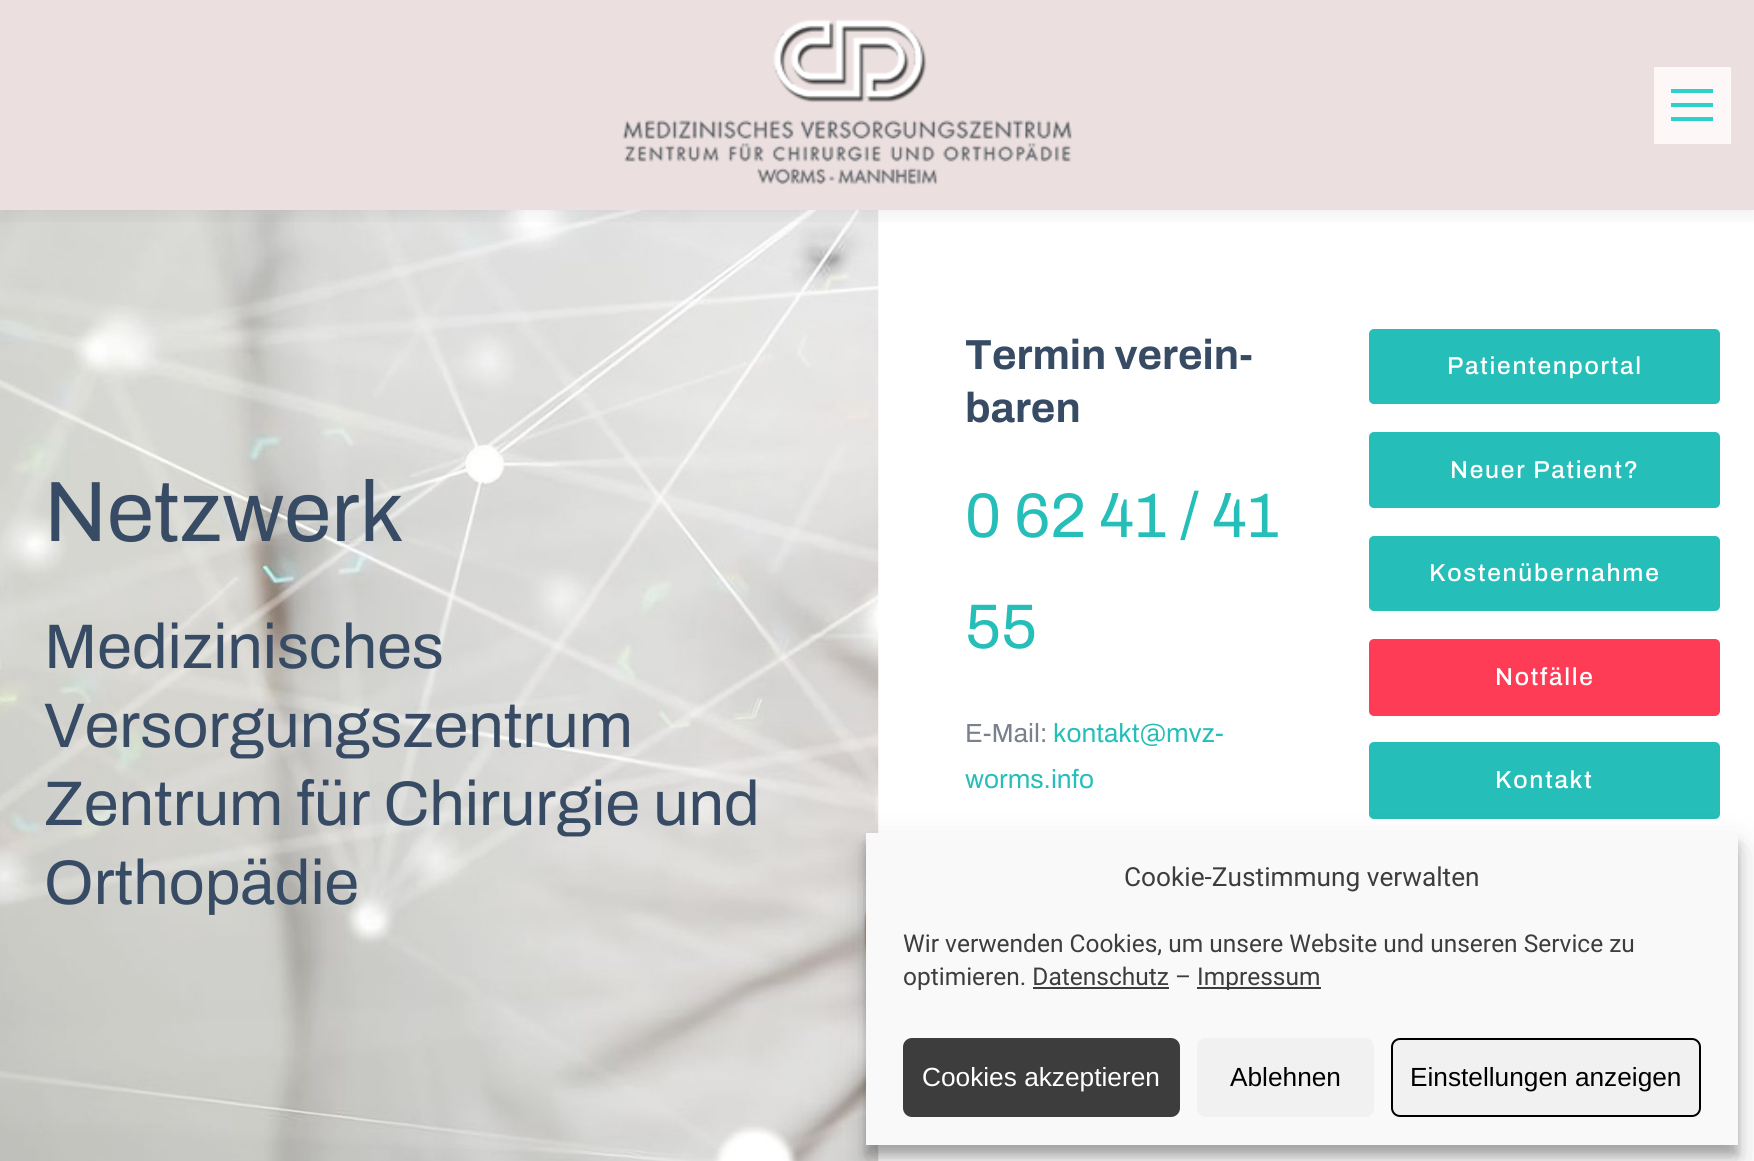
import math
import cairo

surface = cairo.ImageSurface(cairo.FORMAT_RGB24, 1754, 1161)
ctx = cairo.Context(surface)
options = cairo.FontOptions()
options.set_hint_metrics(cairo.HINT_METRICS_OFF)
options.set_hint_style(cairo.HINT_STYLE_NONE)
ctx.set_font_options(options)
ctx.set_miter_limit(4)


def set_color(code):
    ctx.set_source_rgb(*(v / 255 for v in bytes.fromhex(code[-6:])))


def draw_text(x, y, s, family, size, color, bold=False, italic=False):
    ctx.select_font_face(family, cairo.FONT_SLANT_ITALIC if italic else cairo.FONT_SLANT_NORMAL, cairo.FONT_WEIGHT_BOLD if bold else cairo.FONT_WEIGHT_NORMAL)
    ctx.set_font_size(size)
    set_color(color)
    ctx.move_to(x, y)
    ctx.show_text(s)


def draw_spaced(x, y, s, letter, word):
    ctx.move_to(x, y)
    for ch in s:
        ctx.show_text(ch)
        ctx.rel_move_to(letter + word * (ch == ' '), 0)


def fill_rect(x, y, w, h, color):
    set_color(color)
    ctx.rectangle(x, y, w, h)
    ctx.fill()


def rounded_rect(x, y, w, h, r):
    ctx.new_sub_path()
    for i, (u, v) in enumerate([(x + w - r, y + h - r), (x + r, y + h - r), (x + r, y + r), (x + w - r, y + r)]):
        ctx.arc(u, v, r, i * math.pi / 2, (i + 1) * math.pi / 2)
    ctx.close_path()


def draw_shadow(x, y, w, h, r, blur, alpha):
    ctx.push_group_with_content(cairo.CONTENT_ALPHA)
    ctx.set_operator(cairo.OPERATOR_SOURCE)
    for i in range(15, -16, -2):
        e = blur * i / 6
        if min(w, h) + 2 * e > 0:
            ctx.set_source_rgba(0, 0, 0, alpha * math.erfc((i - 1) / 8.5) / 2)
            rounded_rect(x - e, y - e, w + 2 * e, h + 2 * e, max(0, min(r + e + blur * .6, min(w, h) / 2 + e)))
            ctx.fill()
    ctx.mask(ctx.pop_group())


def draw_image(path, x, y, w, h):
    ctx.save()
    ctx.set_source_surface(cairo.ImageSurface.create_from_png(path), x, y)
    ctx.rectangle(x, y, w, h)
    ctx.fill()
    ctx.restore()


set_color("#ebdfdf")
ctx.paint()
fill_rect(878, 210, 876, 951, "#ffffff")
draw_image("assets/img2.png", 0, 210, 879, 951)
ctx.save()
ctx.rectangle(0, 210, 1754, 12)
ctx.clip()
set_color("#11111a")
draw_shadow(0, 0, 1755, 210, 0, 14, 0.1)
ctx.restore()
draw_image("assets/img1.png", 622, 19, 450, 166)
fill_rect(1654, 67, 77, 77, "#fdf7f7")
fill_rect(1671, 103, 42, 4, "#2dd0ca")
fill_rect(1671, 89, 42, 4, "#2dd0ca")
fill_rect(1671, 117, 42, 4, "#2dd0ca")
draw_text(44, 541, "Netzwerk", "Archivo", 85.75, "#384b64")
draw_text(44, 668, "Medizinisches", "Archivo", 63, "#384b64")
draw_text(44, 747, "Versorgungszentrum", "Archivo", 63, "#384b64")
draw_text(44, 825, "Zentrum für Chirurgie und", "Archivo", 63, "#384b64")
draw_text(44, 904, "Orthopädie", "Archivo", 63, "#384b64")
draw_text(965, 369, "Termin verein-", "Archivo", 42, "#384b64", bold=True)
draw_text(965, 422, "baren", "Archivo", 42, "#384b64", bold=True)
draw_text(965, 537, "0 62 41 / 41", "Archivo", 63, "#26beb8")
draw_text(965, 648, "55", "Archivo", 63, "#26beb8")
draw_text(965, 742, "E-Mail:", "Archivo", 26.25, "#79818e")
draw_text(1053, 742, "kontakt@mvz-", "Archivo", 26.25, "#26beb8")
draw_text(965, 788, "worms.info", "Archivo", 26.25, "#26beb8")
rounded_rect(1369, 329, 351, 75, 5)
ctx.fill()
ctx.select_font_face("Archivo Medium")
ctx.set_font_size(24.5)
set_color("#ffffff")
draw_spaced(1447, 374, "Patientenportal", 1.75, 0)
set_color("#26beb8")
rounded_rect(1369, 432, 351, 76, 5)
ctx.fill()
set_color("#ffffff")
draw_spaced(1450, 478, "Neuer Patient?", 1.75, 0)
set_color("#26beb8")
rounded_rect(1369, 536, 351, 75, 5)
ctx.fill()
set_color("#ffffff")
draw_spaced(1429, 581, "Kostenübernahme", 1.75, 0)
set_color("#ff3c56")
rounded_rect(1369, 639, 351, 77, 5)
ctx.fill()
set_color("#ffffff")
draw_spaced(1495, 685, "Notfälle", 1.75, 0)
set_color("#26beb8")
rounded_rect(1369, 742, 351, 77, 5)
ctx.fill()
set_color("#ffffff")
draw_spaced(1495, 788, "Kontakt", 1.75, 0)
set_color("#000000")
draw_shadow(866, 844, 872, 311, 0, 5, 0.23)
draw_shadow(866, 851, 872, 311, 0, 17.5, 0.19)
fill_rect(866, 833, 872, 312, "#f9f9f9")
draw_text(1124, 886, "Cookie-Zustimmung verwalten", "Roboto", 26.25, "#3d3d3d")
draw_text(903, 952, "Wir verwenden Cookies, um unsere Website und unseren Service zu", "Roboto", 24.5, "#3d3d3d")
draw_text(903, 985, "optimieren. Datenschutz –", "Roboto", 24.5, "#3d3d3d")
fill_rect(1033, 987, 136, 2, "#3d3d3d")
fill_rect(1197, 987, 124, 2, "#3d3d3d")
draw_text(1197, 985, "Impressum", "Roboto", 24.5, "#3d3d3d")
rounded_rect(904, 1039, 275, 77, 8)
ctx.fill_preserve()
ctx.stroke()
draw_text(922, 1086, "Cookies akzeptieren", "Liberation Sans", 26.25, "#ffffff")
set_color("#f1f1f1")
rounded_rect(1197, 1038, 177, 79, 9)
ctx.fill()
draw_text(1230, 1086, "Ablehnen", "Liberation Sans", 26.25, "#000000")
set_color("#f1f1f1")
rounded_rect(1392, 1039, 308, 77, 8)
ctx.fill_preserve()
set_color("#000000")
ctx.stroke()
draw_text(1410, 1086, "Einstellungen anzeigen", "Liberation Sans", 26.25, "#000000")
surface.write_to_png("output.png")
